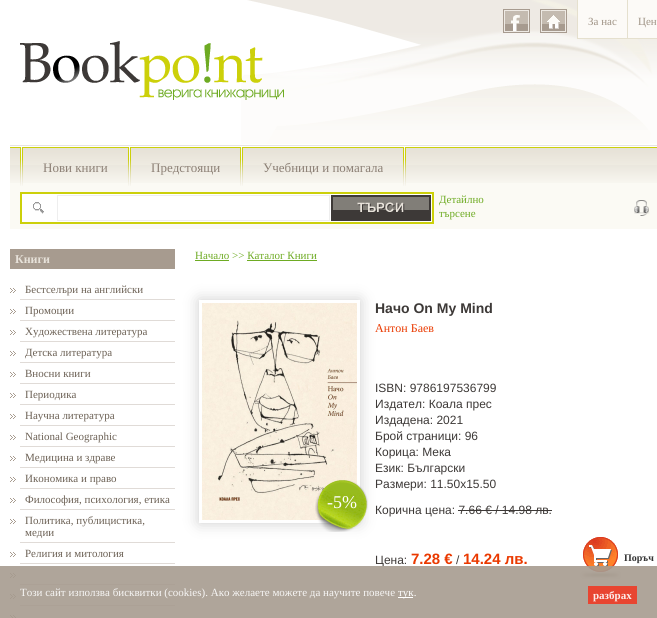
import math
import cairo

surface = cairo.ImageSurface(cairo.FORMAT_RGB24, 657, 618)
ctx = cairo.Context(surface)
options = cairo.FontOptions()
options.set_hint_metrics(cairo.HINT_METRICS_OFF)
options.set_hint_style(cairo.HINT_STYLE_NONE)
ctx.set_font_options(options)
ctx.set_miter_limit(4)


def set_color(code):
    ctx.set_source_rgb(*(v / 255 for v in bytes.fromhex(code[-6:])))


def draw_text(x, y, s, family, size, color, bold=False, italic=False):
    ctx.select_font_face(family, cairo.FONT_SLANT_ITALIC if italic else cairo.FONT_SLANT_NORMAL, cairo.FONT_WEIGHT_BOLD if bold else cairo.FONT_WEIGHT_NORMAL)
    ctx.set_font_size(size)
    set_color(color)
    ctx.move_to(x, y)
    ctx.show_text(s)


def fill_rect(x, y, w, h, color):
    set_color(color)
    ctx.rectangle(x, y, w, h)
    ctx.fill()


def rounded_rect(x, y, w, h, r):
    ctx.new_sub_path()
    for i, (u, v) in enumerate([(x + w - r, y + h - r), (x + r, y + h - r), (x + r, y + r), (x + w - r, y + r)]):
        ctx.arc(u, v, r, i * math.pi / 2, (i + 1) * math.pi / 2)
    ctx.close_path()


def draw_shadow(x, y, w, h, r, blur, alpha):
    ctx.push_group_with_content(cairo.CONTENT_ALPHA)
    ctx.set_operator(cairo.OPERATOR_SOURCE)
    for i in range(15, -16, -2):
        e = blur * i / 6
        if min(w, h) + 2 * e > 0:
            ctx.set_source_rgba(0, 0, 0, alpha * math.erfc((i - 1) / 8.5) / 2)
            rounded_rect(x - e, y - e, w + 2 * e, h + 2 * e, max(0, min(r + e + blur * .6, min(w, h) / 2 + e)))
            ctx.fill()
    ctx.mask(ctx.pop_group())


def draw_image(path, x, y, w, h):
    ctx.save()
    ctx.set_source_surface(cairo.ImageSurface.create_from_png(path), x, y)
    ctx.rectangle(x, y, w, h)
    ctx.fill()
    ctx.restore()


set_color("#ffffff")
ctx.paint()
draw_image("assets/img1.png", 241, 0, 416, 144)
draw_image("assets/img2.png", 503, 9, 27, 24)
draw_image("assets/img3.png", 540, 9, 27, 24)
fill_rect(578, 0, 49, 38, "#fcfaf7")
fill_rect(577, 38, 80, 1, "#e5e0ce")
fill_rect(577, 0, 1, 39, "#e5e0ce")
draw_text(588, 25, "За нас", "Liberation Serif", 11, "#9f9385")
fill_rect(628, 0, 29, 38, "#fcfaf7")
fill_rect(627, 0, 1, 39, "#e5e0ce")
draw_text(638, 25, "Цен", "Liberation Serif", 11, "#9f9385")
draw_image("assets/img4.png", 20, 41, 264, 59)
fill_rect(10, 183, 647, 46, "#fbfaf4")
draw_image("assets/img5.png", 10, 145, 647, 38)
draw_image("assets/img6.png", 20, 147, 3, 39)
draw_text(43, 172, "Нови книги", "Liberation Serif", 13, "#8c8075")
draw_image("assets/img6.png", 128, 147, 3, 39)
draw_text(151, 172, "Предстоящи", "Liberation Serif", 13, "#8c8075")
draw_image("assets/img6.png", 240, 147, 3, 39)
draw_text(263, 172, "Учебници и помагала", "Liberation Serif", 13, "#8c8075")
draw_image("assets/img6.png", 403, 147, 3, 39)
set_color("#ffffff")
ctx.rectangle(21, 193, 412, 30)
ctx.fill_preserve()
set_color("#ccd00a")
ctx.stroke()
draw_image("assets/img7.png", 33, 202, 11, 12)
ctx.rectangle(57.5, 195.5, 272, 25)
set_color("#eeeeee")
ctx.set_line_width(1)
ctx.stroke()
draw_image("assets/img8.png", 331, 195, 100, 26)
draw_text(439, 203, "Детайлно", "Liberation Serif", 11, "#6eab23")
draw_text(439, 217, "търсене", "Liberation Serif", 11, "#6eab23")
draw_image("assets/img9.png", 634, 200, 16, 16)
fill_rect(10, 249, 165, 20, "#a79b8f")
draw_text(15, 263, "Книги", "Liberation Serif", 12, "#e7e2da", bold=True)
draw_image("assets/img10.png", 10, 288, 6, 5)
fill_rect(20, 299, 155, 1, "#e0dbd7")
draw_text(25, 293, "Бестселъри на английски", "Liberation Serif", 11, "#6c6155")
draw_image("assets/img10.png", 10, 309, 6, 5)
fill_rect(20, 320, 155, 1, "#e0dbd7")
draw_text(25, 314, "Промоции", "Liberation Serif", 11, "#6c6155")
draw_image("assets/img10.png", 10, 330, 6, 5)
fill_rect(20, 341, 155, 1, "#e0dbd7")
draw_text(25, 335, "Художествена литература", "Liberation Serif", 11, "#6c6155")
draw_image("assets/img10.png", 10, 351, 6, 5)
fill_rect(20, 362, 155, 1, "#e0dbd7")
draw_text(25, 356, "Детска литература", "Liberation Serif", 11, "#6c6155")
draw_image("assets/img10.png", 10, 372, 6, 5)
fill_rect(20, 383, 155, 1, "#e0dbd7")
draw_text(25, 377, "Вносни книги", "Liberation Serif", 11, "#6c6155")
draw_image("assets/img10.png", 10, 393, 6, 5)
fill_rect(20, 404, 155, 1, "#e0dbd7")
draw_text(25, 398, "Периодика", "Liberation Serif", 11, "#6c6155")
draw_image("assets/img10.png", 10, 414, 6, 5)
fill_rect(20, 425, 155, 1, "#e0dbd7")
draw_text(25, 419, "Научна литература", "Liberation Serif", 11, "#6c6155")
draw_image("assets/img10.png", 10, 435, 6, 5)
fill_rect(20, 446, 155, 1, "#e0dbd7")
draw_text(25, 440, "National Geographic", "Liberation Serif", 11, "#6c6155")
draw_image("assets/img10.png", 10, 456, 6, 5)
fill_rect(20, 467, 155, 1, "#e0dbd7")
draw_text(25, 461, "Медицина и здраве", "Liberation Serif", 11, "#6c6155")
draw_image("assets/img10.png", 10, 477, 6, 5)
fill_rect(20, 488, 155, 1, "#e0dbd7")
draw_text(25, 482, "Икономика и право", "Liberation Serif", 11, "#6c6155")
draw_image("assets/img10.png", 10, 498, 6, 5)
fill_rect(20, 509, 155, 1, "#e0dbd7")
draw_text(25, 503, "Философия, психология, етика", "Liberation Serif", 11, "#6c6155")
draw_image("assets/img10.png", 10, 519, 6, 5)
fill_rect(20, 542, 155, 1, "#e0dbd7")
draw_text(25, 524, "Политика, публицистика,", "Liberation Serif", 11, "#6c6155")
draw_text(25, 536, "медии", "Liberation Serif", 11, "#6c6155")
draw_image("assets/img10.png", 10, 552, 6, 5)
fill_rect(20, 563, 155, 1, "#e0dbd7")
draw_text(25, 557, "Религия и митология", "Liberation Serif", 11, "#6c6155")
draw_image("assets/img10.png", 10, 573, 6, 5)
fill_rect(20, 584, 155, 1, "#e0dbd7")
draw_image("assets/img10.png", 10, 594, 6, 5)
fill_rect(20, 605, 155, 1, "#e0dbd7")
draw_image("assets/img11.png", 10, 615, 6, 3)
draw_text(195, 259, "Начало >> Каталог Книги", "Liberation Serif", 11, "#6eab23")
fill_rect(195, 260, 34, 1, "#6eab23")
fill_rect(247, 260, 70, 1, "#6eab23")
ctx.save()
ctx.set_fill_rule(cairo.FILL_RULE_EVEN_ODD)
ctx.new_path()
ctx.move_to(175, 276)
ctx.line_to(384, 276)
ctx.line_to(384, 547)
ctx.line_to(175, 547)
ctx.close_path()
ctx.move_to(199, 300)
ctx.line_to(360, 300)
ctx.line_to(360, 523)
ctx.line_to(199, 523)
ctx.close_path()
ctx.clip()
set_color("#cecece")
draw_shadow(199, 300, 161, 223, 0, 7.5, 1)
ctx.restore()
draw_image("assets/img12.png", 202, 303, 155, 217)
draw_image("assets/img13.png", 315, 480, 53, 52)
draw_text(327, 508, "-5%", "Liberation Serif", 18, "#ffffff")
draw_text(375, 313, "Начо On My Mind", "Liberation Sans", 14, "#3d3937", bold=True)
draw_text(375, 332, "Антон Баев", "Liberation Serif", 12, "#ea3900")
draw_text(375, 392, "ISBN: 9786197536799", "Liberation Sans", 12, "#3d3937")
draw_text(375, 408, "Издател: Коала прес", "Liberation Sans", 12, "#3d3937")
draw_text(375, 424, "Издадена: 2021", "Liberation Sans", 12, "#3d3937")
draw_text(375, 440, "Брой страници: 96", "Liberation Sans", 12, "#3d3937")
draw_text(375, 456, "Корица: Мекa", "Liberation Sans", 12, "#3d3937")
draw_text(375, 472, "Език: Български", "Liberation Sans", 12, "#3d3937")
draw_text(375, 488, "Размери: 11.50x15.50", "Liberation Sans", 12, "#3d3937")
draw_text(375, 514, "Корична цена: 7.66 € / 14.98 лв.", "Liberation Sans", 12, "#3d3937")
fill_rect(458, 510, 94, 1, "#3d3937")
draw_text(375, 564, "Цена:", "Liberation Sans", 12, "#3d3937")
draw_text(411, 564, "7.28 €", "Liberation Sans", 15, "#ea3900", bold=True)
draw_text(456, 564, "/", "Liberation Sans", 12, "#3d3937")
draw_text(463, 564, "14.24 лв.", "Liberation Sans", 15, "#ea3900", bold=True)
draw_image("assets/img14.png", 580, 537, 41, 43)
draw_text(624, 561, "Поръч", "Liberation Serif", 10, "#333333", bold=True)
ctx.set_source_rgba(0.655, 0.608, 0.561, 0.9)
ctx.rectangle(0, 566, 657, 52)
ctx.fill()
draw_text(20, 596, "Този сайт използва бисквитки (cookies). Ако желаете можете да научите повече", "Liberation Serif", 11, "#f7f6f5")
fill_rect(398, 597, 15, 1, "#ffffff")
draw_text(398, 596, "тук.", "Liberation Serif", 11, "#ffffff")
ctx.set_source_rgba(0.937, 0.231, 0.149, 0.9)
ctx.rectangle(588, 586, 49, 18)
ctx.fill()
draw_text(593, 599, "разбрах", "Liberation Serif", 11, "#fdecea", bold=True)
surface.write_to_png("output.png")
